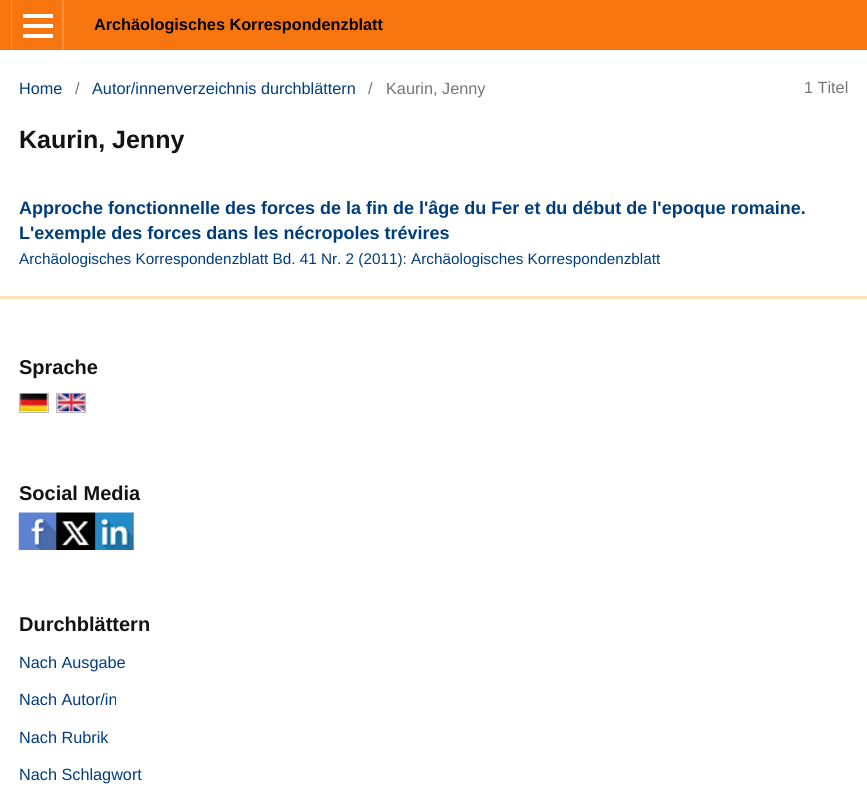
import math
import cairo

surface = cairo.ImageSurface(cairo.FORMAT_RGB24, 867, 791)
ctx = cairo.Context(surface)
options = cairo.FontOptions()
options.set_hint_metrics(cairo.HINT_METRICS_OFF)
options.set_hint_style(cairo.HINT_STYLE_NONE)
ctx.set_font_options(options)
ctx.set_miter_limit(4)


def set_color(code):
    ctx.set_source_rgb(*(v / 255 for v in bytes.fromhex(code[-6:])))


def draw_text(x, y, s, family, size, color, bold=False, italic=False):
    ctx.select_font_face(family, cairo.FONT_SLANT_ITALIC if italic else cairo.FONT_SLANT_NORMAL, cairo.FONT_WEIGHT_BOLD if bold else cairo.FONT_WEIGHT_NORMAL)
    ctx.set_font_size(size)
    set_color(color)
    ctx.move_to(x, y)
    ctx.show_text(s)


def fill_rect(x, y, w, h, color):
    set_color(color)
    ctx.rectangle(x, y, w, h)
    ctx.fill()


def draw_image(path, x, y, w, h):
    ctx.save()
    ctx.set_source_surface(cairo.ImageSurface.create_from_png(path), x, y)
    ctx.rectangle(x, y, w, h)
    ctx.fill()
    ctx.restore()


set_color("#ffffff")
ctx.paint()
fill_rect(0, 0, 867, 50, "#f6750f")
fill_rect(11, 0, 1, 50, "#f8913f")
fill_rect(62, 0, 2, 50, "#f8913f")
fill_rect(23, 34, 30, 4, "#ffffff")
fill_rect(23, 14, 30, 4, "#ffffff")
fill_rect(23, 24, 30, 4, "#ffffff")
draw_text(94, 30, "Archäologisches Korrespondenzblatt", "Liberation Sans", 16.25, "#000000", bold=True)
draw_text(19, 94, "Home", "Liberation Sans", 16.25, "#003d7b")
draw_text(75, 94, "/", "Liberation Sans", 16.25, "#757575")
draw_text(92, 94, "Autor/innenverzeichnis durchblättern", "Liberation Sans", 16.25, "#003d7b")
draw_text(368, 94, "/", "Liberation Sans", 16.25, "#757575")
draw_text(386, 94, "Kaurin, Jenny", "Liberation Sans", 16.25, "#757575")
draw_text(804, 93, "1 Titel", "Liberation Sans", 16.25, "#757575")
draw_text(19, 148, "Kaurin, Jenny", "Liberation Sans", 25, "#141313", bold=True)
draw_text(19, 214, "Approche fonctionnelle des forces de la fin de l'âge du Fer et du début de l'epoque romaine.", "Liberation Sans", 18, "#003d7b", bold=True)
draw_text(19, 239, "L'exemple des forces dans les nécropoles trévires", "Liberation Sans", 18, "#003d7b", bold=True)
draw_text(19, 264, "Archäologisches Korrespondenzblatt Bd. 41 Nr. 2 (2011): Archäologisches Korrespondenzblatt", "Liberation Sans", 15.3, "#003d7b")
fill_rect(0, 296, 867, 3, "#f9e1bc")
draw_text(19, 374, "Sprache", "Liberation Sans", 20, "#141313", bold=True)
ctx.rectangle(19.5, 393.5, 29, 19)
set_color("#bbbbbb")
ctx.set_line_width(1)
ctx.stroke()
draw_image("assets/img1.png", 20, 393, 28, 19)
ctx.rectangle(56.5, 393.5, 29, 19)
ctx.stroke()
draw_image("assets/img2.png", 57, 393, 28, 19)
draw_text(19, 500, "Social Media", "Liberation Sans", 20, "#141313", bold=True)
draw_image("assets/img3.png", 18, 512, 116, 38)
draw_text(19, 631, "Durchblättern", "Liberation Sans", 20, "#141313", bold=True)
draw_text(19, 668, "Nach Ausgabe", "Liberation Sans", 16.25, "#003d7b")
draw_text(19, 705, "Nach Autor/in", "Liberation Sans", 16.25, "#003d7b")
draw_text(19, 743, "Nach Rubrik", "Liberation Sans", 16.25, "#003d7b")
draw_text(19, 780, "Nach Schlagwort", "Liberation Sans", 16.25, "#003d7b")
surface.write_to_png("output.png")
